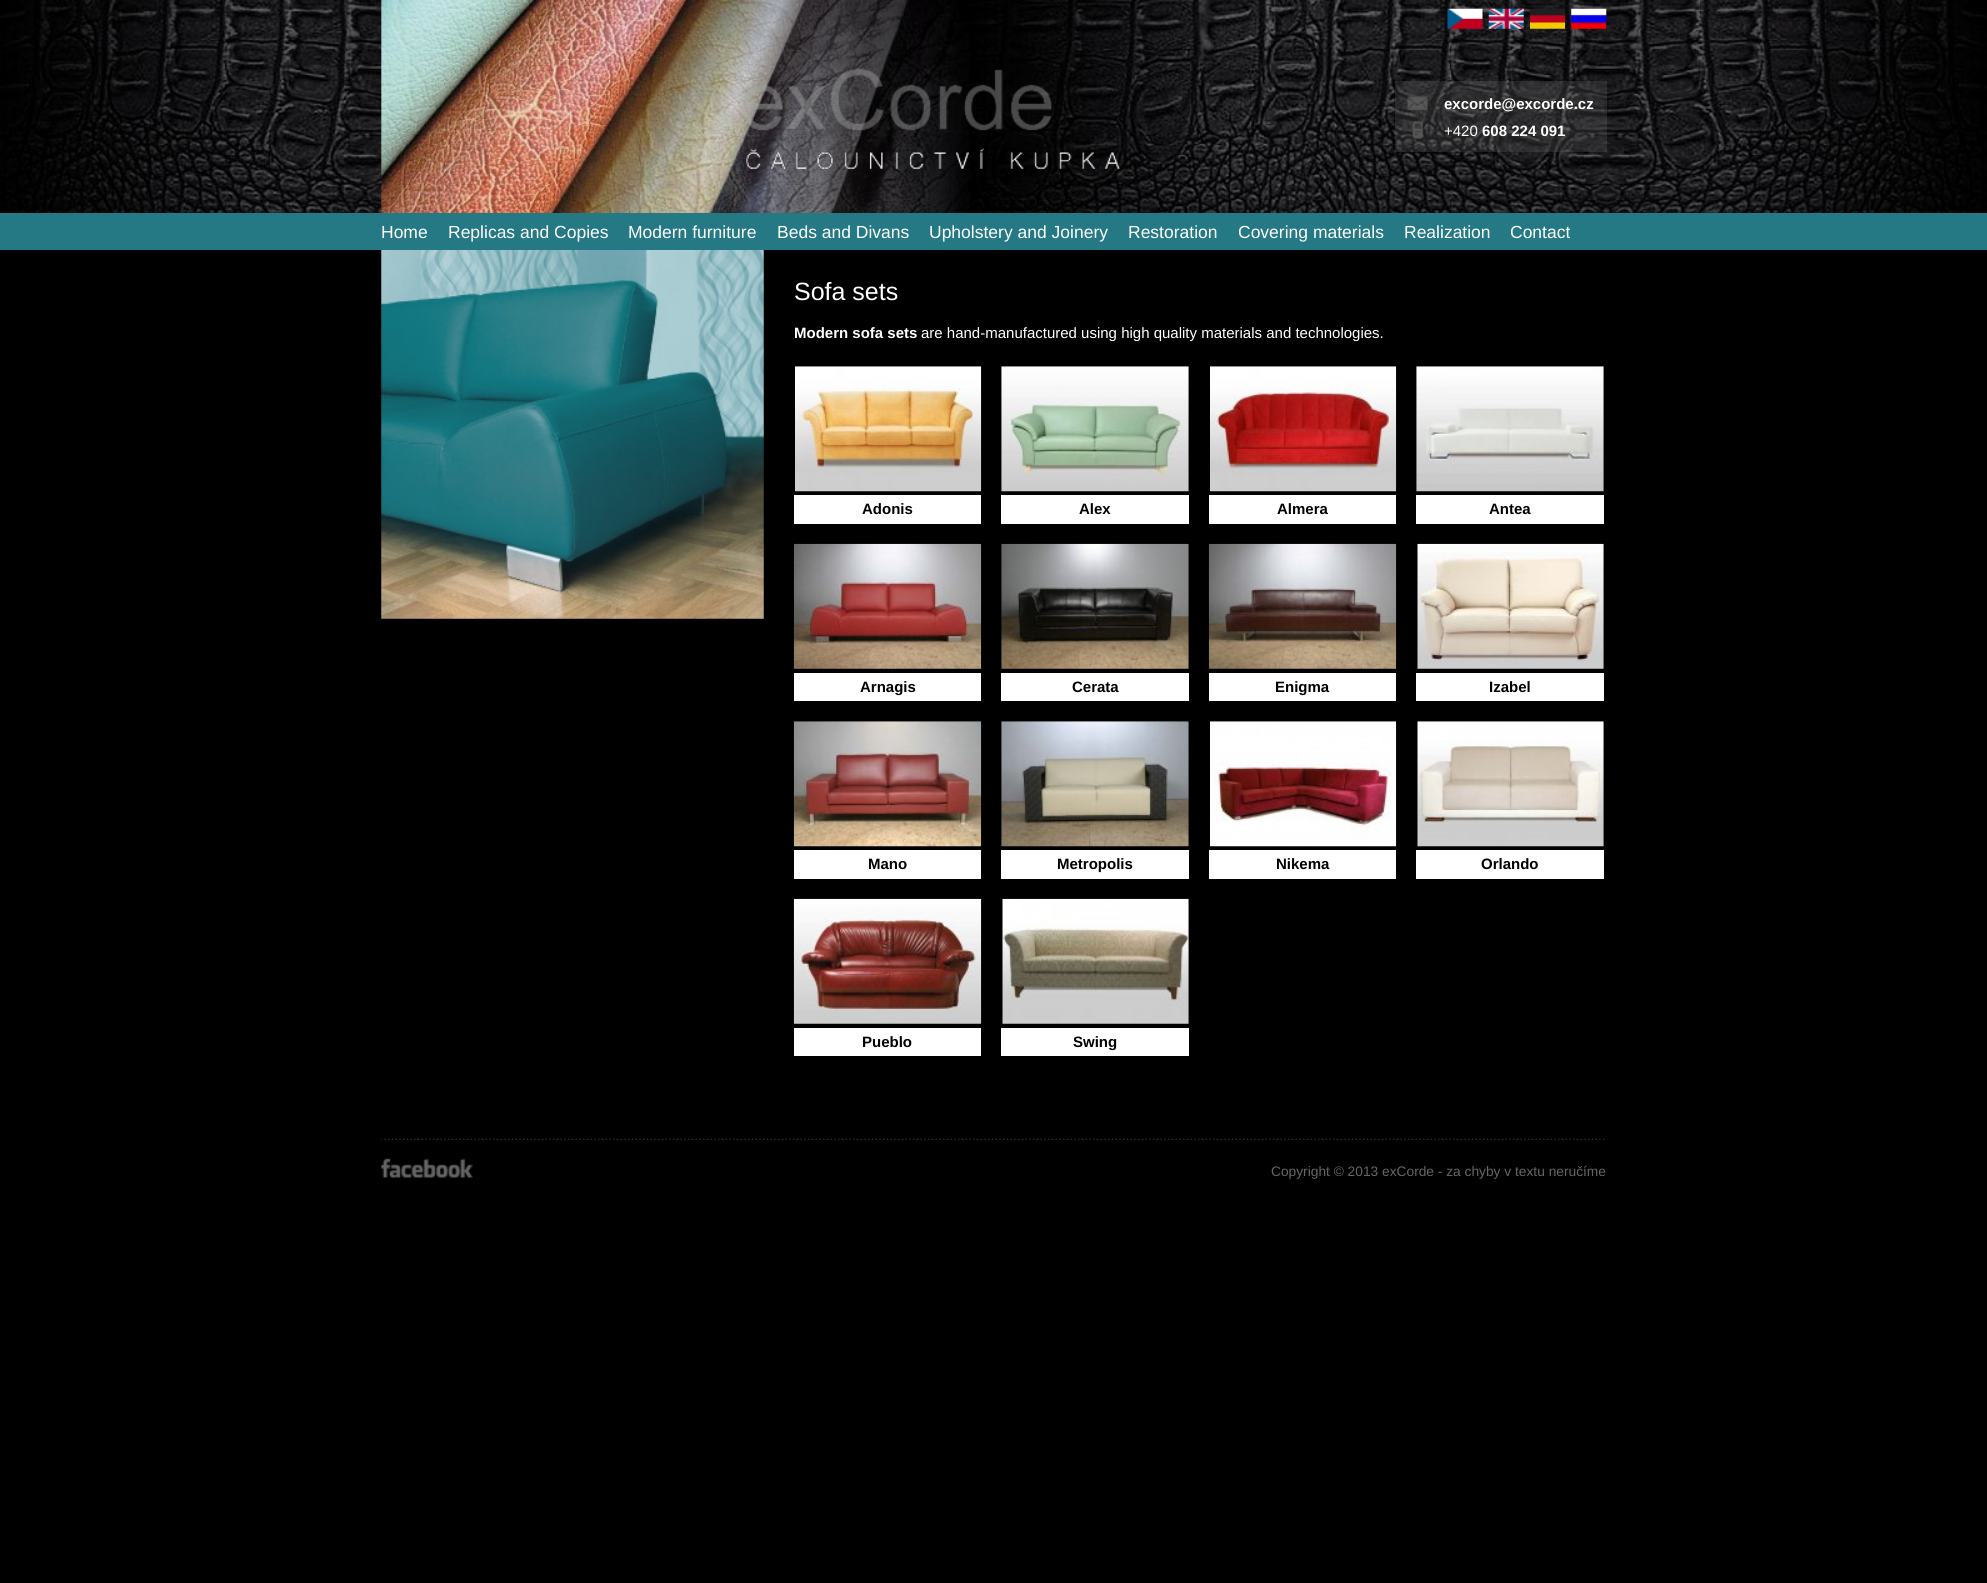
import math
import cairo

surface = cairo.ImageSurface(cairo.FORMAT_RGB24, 1987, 1583)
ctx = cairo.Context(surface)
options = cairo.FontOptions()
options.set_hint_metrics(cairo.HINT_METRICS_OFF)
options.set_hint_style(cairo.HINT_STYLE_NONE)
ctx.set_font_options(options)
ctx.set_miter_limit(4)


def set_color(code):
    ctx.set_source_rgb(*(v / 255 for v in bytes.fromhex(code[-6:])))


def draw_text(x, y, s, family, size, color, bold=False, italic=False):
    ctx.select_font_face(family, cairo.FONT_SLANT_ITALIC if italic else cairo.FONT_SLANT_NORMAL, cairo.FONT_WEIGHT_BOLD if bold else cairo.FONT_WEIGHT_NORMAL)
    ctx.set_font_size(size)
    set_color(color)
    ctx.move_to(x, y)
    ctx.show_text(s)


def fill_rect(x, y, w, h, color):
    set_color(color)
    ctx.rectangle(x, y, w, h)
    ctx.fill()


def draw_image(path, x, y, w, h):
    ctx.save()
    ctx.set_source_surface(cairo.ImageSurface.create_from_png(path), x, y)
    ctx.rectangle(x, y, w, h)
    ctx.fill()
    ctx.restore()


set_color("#000000")
ctx.paint()
draw_image("assets/img1.png", 0, 0, 1987, 213)
draw_image("assets/img2.png", 1447, 8, 36, 21)
draw_image("assets/img3.png", 1488, 8, 36, 21)
draw_image("assets/img4.png", 1530, 8, 35, 21)
draw_image("assets/img5.png", 1571, 8, 36, 21)
draw_image("assets/img6.png", 741, 68, 379, 102)
ctx.set_source_rgba(0.51, 0.51, 0.51, 0.2)
ctx.rectangle(1395, 81, 212, 71)
ctx.fill()
draw_image("assets/img7.png", 1407, 96, 21, 15)
draw_text(1444, 109, "excorde@excorde.cz", "Liberation Sans", 15, "#ffffff", bold=True)
draw_image("assets/img8.png", 1412, 121, 11, 18)
draw_text(1444, 136, "+420", "Liberation Sans", 15, "#ffffff")
draw_text(1482, 136, "608 224 091", "Liberation Sans", 15, "#ffffff", bold=True)
fill_rect(0, 213, 1987, 37, "#257984")
draw_text(381, 238, "Home", "Liberation Sans", 17.5, "#ffffff")
draw_text(448, 238, "Replicas and Copies", "Liberation Sans", 17.5, "#ffffff")
draw_text(628, 238, "Modern furniture", "Liberation Sans", 17.5, "#ffffff")
draw_text(777, 238, "Beds and Divans", "Liberation Sans", 17.5, "#ffffff")
draw_text(929, 238, "Upholstery and Joinery", "Liberation Sans", 17.5, "#ffffff")
draw_text(1128, 238, "Restoration", "Liberation Sans", 17.5, "#ffffff")
draw_text(1238, 238, "Covering materials", "Liberation Sans", 17.5, "#ffffff")
draw_text(1404, 238, "Realization", "Liberation Sans", 17.5, "#ffffff")
draw_text(1510, 238, "Contact", "Liberation Sans", 17.5, "#ffffff")
draw_image("assets/img9.png", 381, 250, 383, 369)
draw_text(794, 300, "Sofa sets", "Liberation Sans", 25, "#ffffff")
draw_text(794, 338, "Modern sofa sets", "Liberation Sans", 15, "#ffffff", bold=True)
draw_text(921, 338, "are hand-manufactured using high quality materials and technologies.", "Liberation Sans", 15, "#ffffff")
draw_image("assets/img10.png", 795, 366, 187, 126)
fill_rect(794, 495, 187, 29, "#ffffff")
draw_text(862, 514, "Adonis", "Liberation Sans", 15, "#000000", bold=True)
draw_image("assets/img11.png", 1001, 366, 188, 126)
fill_rect(1001, 495, 188, 29, "#ffffff")
draw_text(1079, 514, "Alex", "Liberation Sans", 15, "#000000", bold=True)
draw_image("assets/img12.png", 1210, 366, 187, 126)
fill_rect(1209, 495, 187, 29, "#ffffff")
draw_text(1277, 514, "Almera", "Liberation Sans", 15, "#000000", bold=True)
draw_image("assets/img13.png", 1416, 366, 188, 126)
fill_rect(1416, 495, 188, 29, "#ffffff")
draw_text(1489, 514, "Antea", "Liberation Sans", 15, "#000000", bold=True)
draw_image("assets/img14.png", 793, 543, 189, 126)
fill_rect(794, 673, 187, 28, "#ffffff")
draw_text(860, 692, "Arnagis", "Liberation Sans", 15, "#000000", bold=True)
draw_image("assets/img15.png", 1001, 543, 188, 126)
fill_rect(1001, 673, 188, 28, "#ffffff")
draw_text(1072, 692, "Cerata", "Liberation Sans", 15, "#000000", bold=True)
draw_image("assets/img16.png", 1208, 543, 189, 126)
fill_rect(1209, 673, 187, 28, "#ffffff")
draw_text(1275, 692, "Enigma", "Liberation Sans", 15, "#000000", bold=True)
draw_image("assets/img17.png", 1417, 543, 187, 126)
fill_rect(1416, 673, 188, 28, "#ffffff")
draw_text(1489, 692, "Izabel", "Liberation Sans", 15, "#000000", bold=True)
draw_image("assets/img18.png", 793, 721, 189, 126)
fill_rect(794, 850, 187, 29, "#ffffff")
draw_text(868, 869, "Mano", "Liberation Sans", 15, "#000000", bold=True)
draw_image("assets/img19.png", 1001, 721, 188, 126)
fill_rect(1001, 850, 188, 29, "#ffffff")
draw_text(1057, 869, "Metropolis", "Liberation Sans", 15, "#000000", bold=True)
draw_image("assets/img20.png", 1210, 721, 187, 126)
fill_rect(1209, 850, 187, 29, "#ffffff")
draw_text(1276, 869, "Nikema", "Liberation Sans", 15, "#000000", bold=True)
draw_image("assets/img21.png", 1417, 721, 187, 126)
fill_rect(1416, 850, 188, 29, "#ffffff")
draw_text(1481, 869, "Orlando", "Liberation Sans", 15, "#000000", bold=True)
draw_image("assets/img22.png", 793, 898, 189, 126)
fill_rect(794, 1028, 187, 28, "#ffffff")
draw_text(862, 1047, "Pueblo", "Liberation Sans", 15, "#000000", bold=True)
draw_image("assets/img23.png", 1002, 898, 187, 126)
fill_rect(1001, 1028, 188, 28, "#ffffff")
draw_text(1073, 1047, "Swing", "Liberation Sans", 15, "#000000", bold=True)
draw_image("assets/img24.png", 381, 1138, 1224, 2)
draw_image("assets/img25.png", 381, 1158, 92, 20)
draw_text(1271, 1176, "Copyright © 2013 exCorde - za chyby v textu neručíme", "Liberation Sans", 13.75, "#666666")
surface.write_to_png("output.png")
